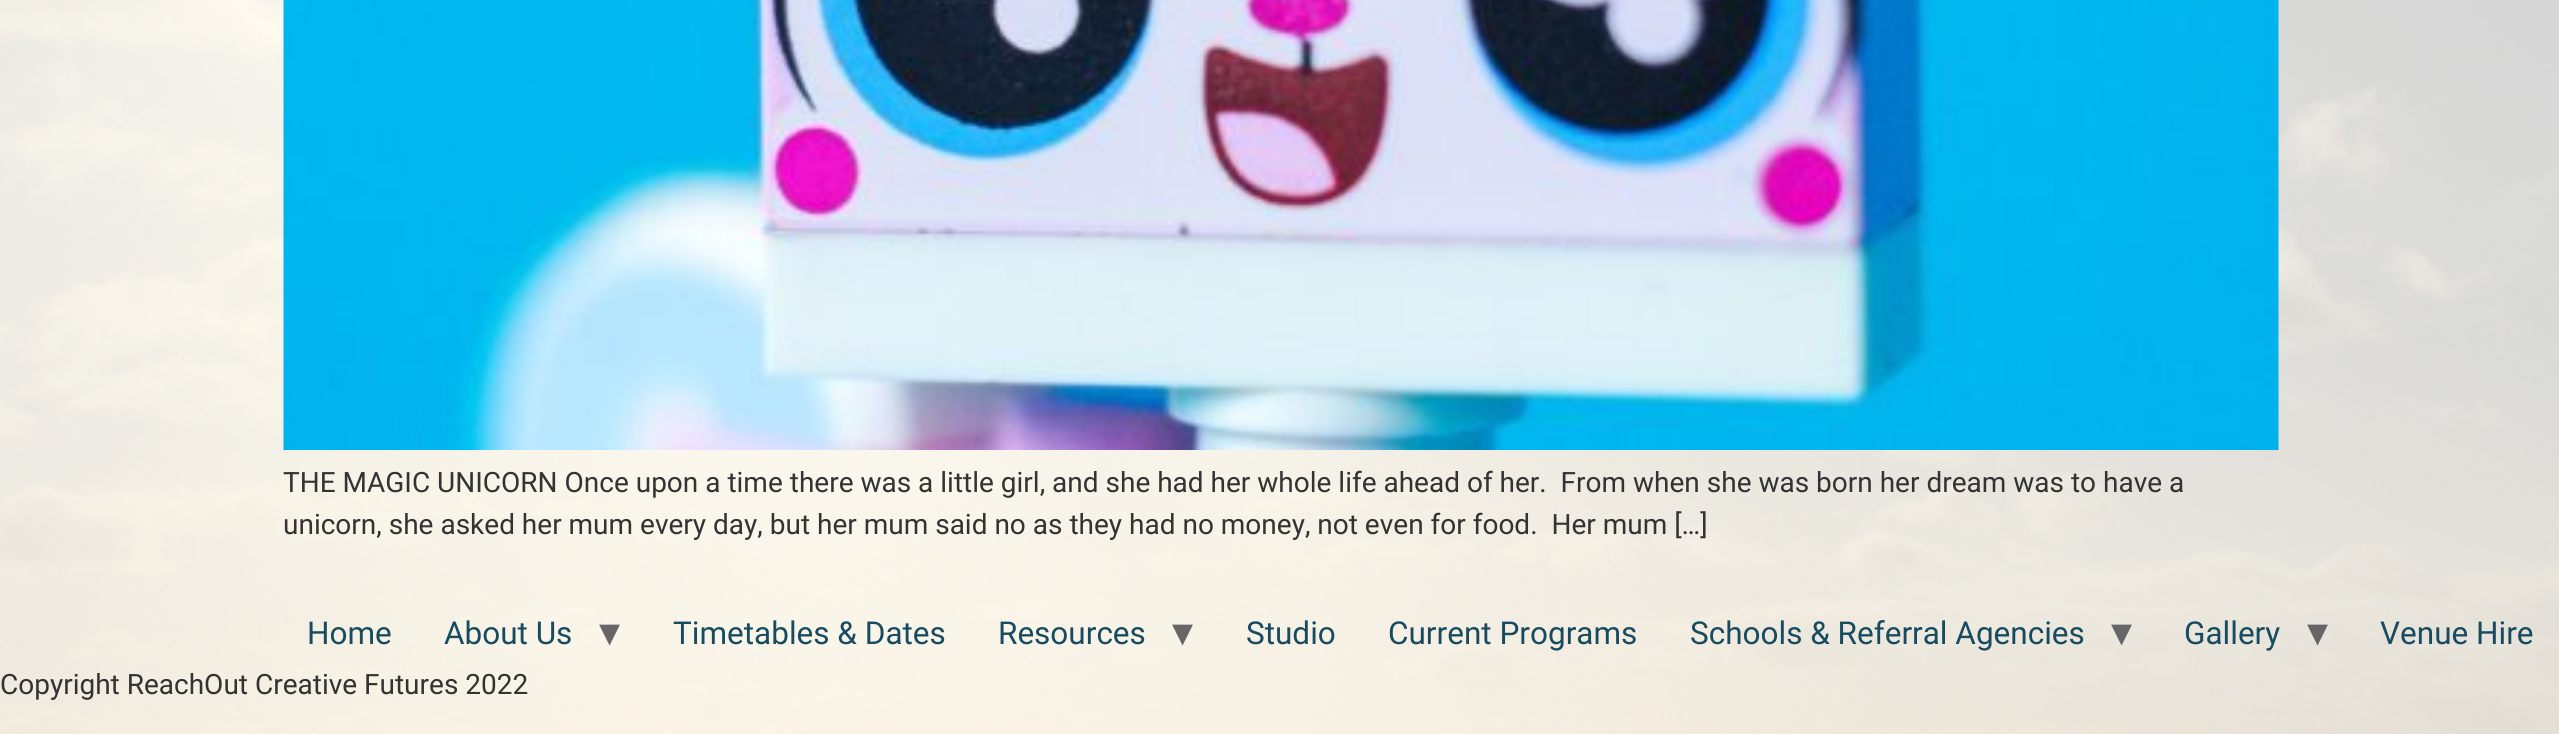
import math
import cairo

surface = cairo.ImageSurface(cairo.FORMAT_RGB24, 2559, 734)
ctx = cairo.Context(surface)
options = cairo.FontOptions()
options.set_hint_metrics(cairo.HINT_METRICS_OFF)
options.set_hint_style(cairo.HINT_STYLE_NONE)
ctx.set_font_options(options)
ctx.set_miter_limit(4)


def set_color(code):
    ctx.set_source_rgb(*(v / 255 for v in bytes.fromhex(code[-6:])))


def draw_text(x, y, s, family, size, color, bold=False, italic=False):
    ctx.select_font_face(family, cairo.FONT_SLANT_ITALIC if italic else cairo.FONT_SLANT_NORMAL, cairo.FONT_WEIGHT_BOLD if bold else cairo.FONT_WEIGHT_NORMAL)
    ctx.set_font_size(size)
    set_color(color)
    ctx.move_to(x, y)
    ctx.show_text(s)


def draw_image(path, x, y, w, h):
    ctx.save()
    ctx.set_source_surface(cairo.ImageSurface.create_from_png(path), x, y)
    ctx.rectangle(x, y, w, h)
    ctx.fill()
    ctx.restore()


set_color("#ffffff")
ctx.paint()
draw_image("assets/img1.png", 0, 0, 2559, 734)
draw_image("assets/img2.png", 283, 0, 1996, 450)
draw_text(283, 492, "THE MAGIC UNICORN Once upon a time there was a little girl, and she had her whole life ahead of her.  From when she was born her dream was to have a", "Roboto", 28, "#333333")
draw_text(283, 534, "unicorn, she asked her mum every day, but her mum said no as they had no money, not even for food.  Her mum […]", "Roboto", 28, "#333333")
draw_text(307, 644, "Home", "Roboto", 31.5, "#174b60")
draw_text(444, 644, "About Us", "Roboto", 31.5, "#174b60")
draw_text(599, 646, "▾", "DejaVu Sans", 42, "#666666")
draw_text(673, 644, "Timetables & Dates", "Roboto", 31.5, "#174b60")
draw_text(998, 644, "Resources", "Roboto", 31.5, "#174b60")
draw_text(1172, 646, "▾", "DejaVu Sans", 42, "#666666")
draw_text(1246, 644, "Studio", "Roboto", 31.5, "#174b60")
draw_text(1388, 644, "Current Programs", "Roboto", 31.5, "#174b60")
draw_text(1690, 644, "Schools & Referral Agencies", "Roboto", 31.5, "#174b60")
draw_text(2111, 646, "▾", "DejaVu Sans", 42, "#666666")
draw_text(2184, 644, "Gallery", "Roboto", 31.5, "#174b60")
draw_text(2307, 646, "▾", "DejaVu Sans", 42, "#666666")
draw_text(2380, 644, "Venue Hire", "Roboto", 31.5, "#174b60")
draw_text(0, 694, "Copyright ReachOut Creative Futures 2022", "Roboto", 28, "#333333")
surface.write_to_png("output.png")
